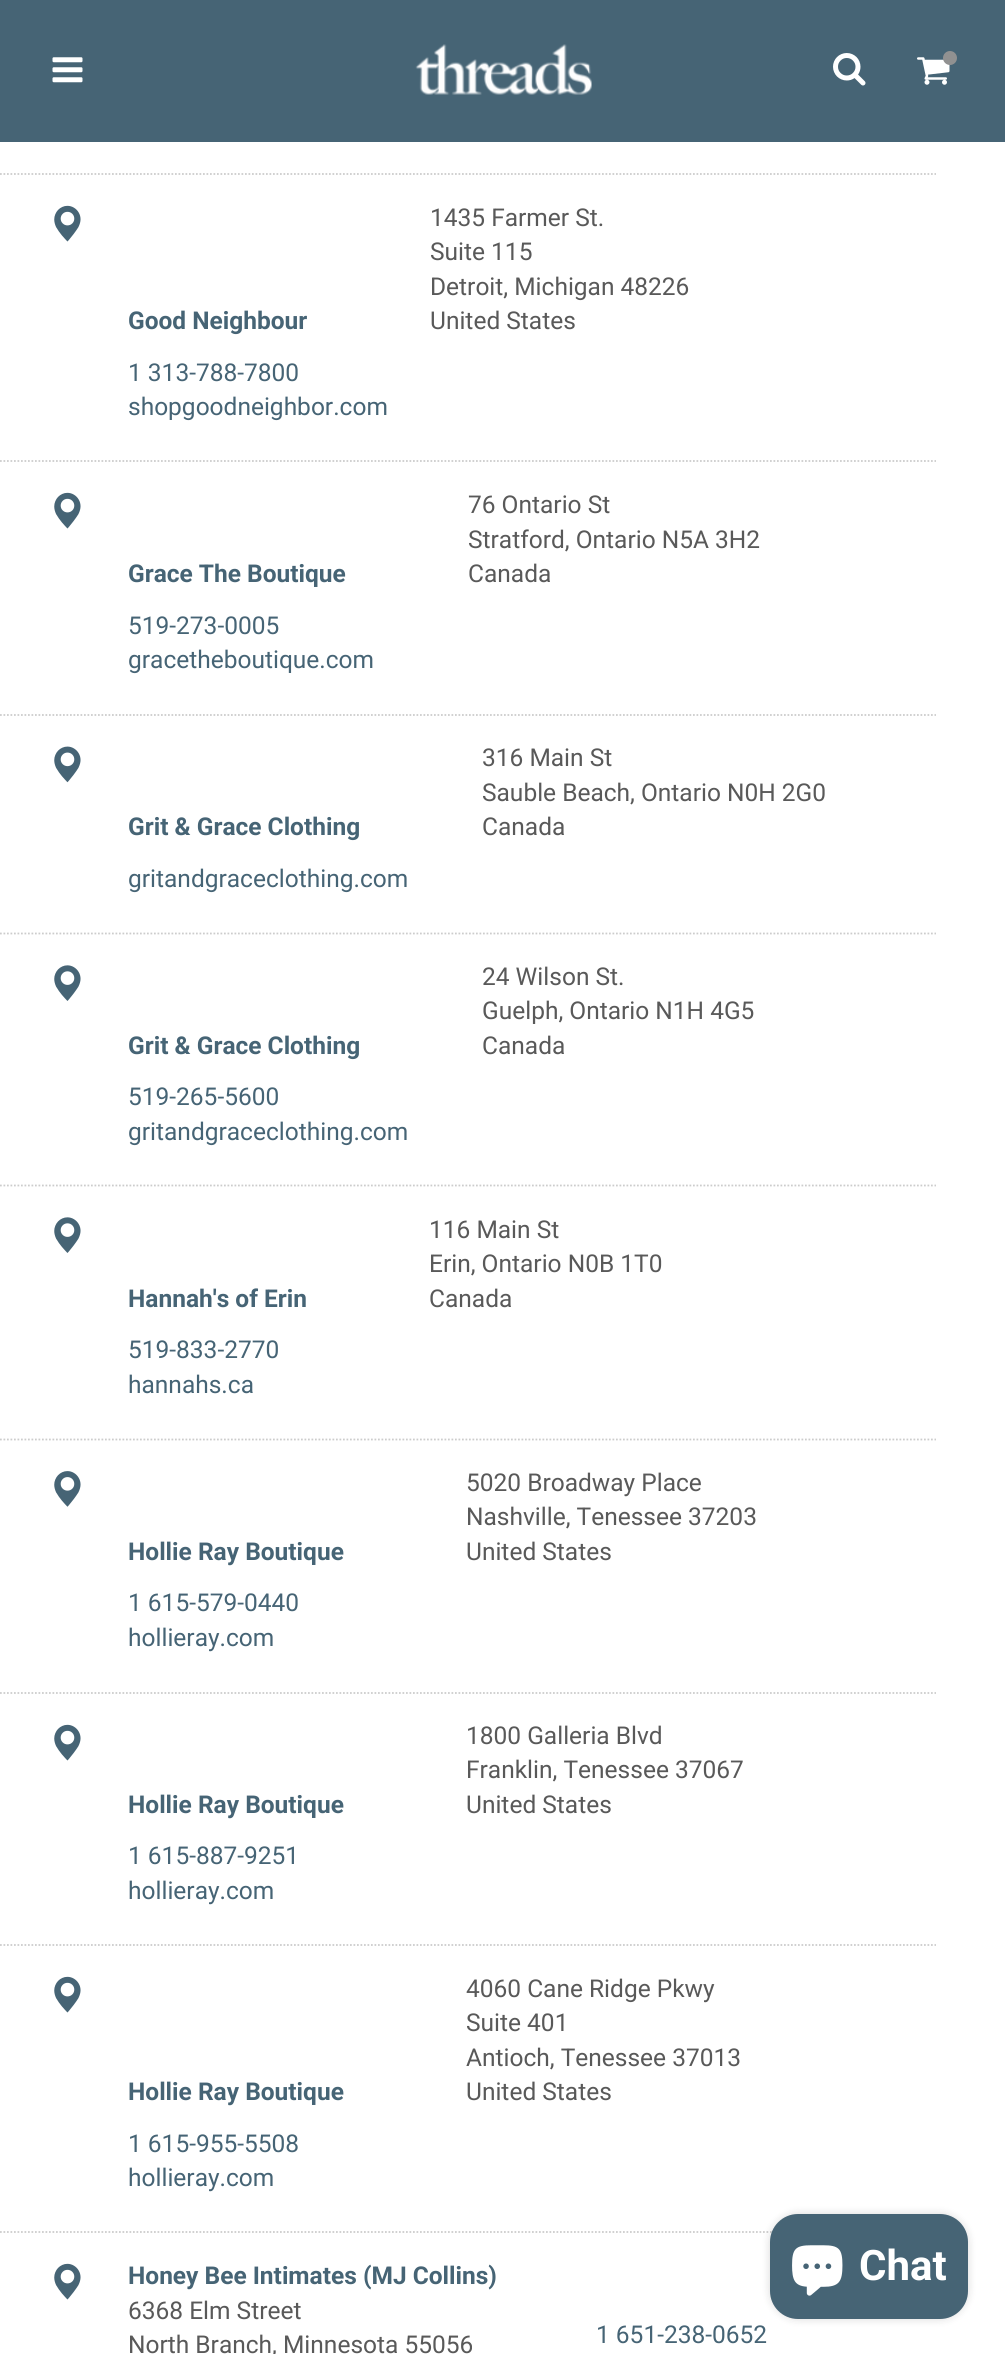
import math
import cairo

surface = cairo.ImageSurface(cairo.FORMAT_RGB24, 1005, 2354)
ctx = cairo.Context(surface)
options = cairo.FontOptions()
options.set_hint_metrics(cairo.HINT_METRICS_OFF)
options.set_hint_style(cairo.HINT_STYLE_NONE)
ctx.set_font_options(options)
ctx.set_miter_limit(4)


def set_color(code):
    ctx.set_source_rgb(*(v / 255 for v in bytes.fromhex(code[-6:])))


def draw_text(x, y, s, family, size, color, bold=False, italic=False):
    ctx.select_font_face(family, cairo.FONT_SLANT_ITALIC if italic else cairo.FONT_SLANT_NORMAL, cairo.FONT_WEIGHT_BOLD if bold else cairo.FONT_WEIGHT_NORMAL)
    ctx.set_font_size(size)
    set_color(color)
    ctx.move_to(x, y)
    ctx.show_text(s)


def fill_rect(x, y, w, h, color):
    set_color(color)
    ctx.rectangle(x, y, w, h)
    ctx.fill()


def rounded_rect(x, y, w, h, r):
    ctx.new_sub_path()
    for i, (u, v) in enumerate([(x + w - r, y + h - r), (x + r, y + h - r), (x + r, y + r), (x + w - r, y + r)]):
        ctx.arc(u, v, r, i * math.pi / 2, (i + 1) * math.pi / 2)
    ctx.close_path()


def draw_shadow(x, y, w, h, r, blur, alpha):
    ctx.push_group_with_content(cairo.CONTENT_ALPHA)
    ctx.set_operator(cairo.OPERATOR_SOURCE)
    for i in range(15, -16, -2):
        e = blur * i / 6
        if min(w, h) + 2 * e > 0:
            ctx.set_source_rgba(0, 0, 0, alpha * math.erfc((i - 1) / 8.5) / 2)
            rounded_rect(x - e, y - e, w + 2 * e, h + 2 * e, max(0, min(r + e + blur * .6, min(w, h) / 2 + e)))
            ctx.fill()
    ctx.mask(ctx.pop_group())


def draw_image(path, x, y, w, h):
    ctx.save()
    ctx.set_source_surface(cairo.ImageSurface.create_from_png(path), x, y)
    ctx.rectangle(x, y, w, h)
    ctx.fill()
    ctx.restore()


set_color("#ffffff")
ctx.paint()
fill_rect(0, 0, 1005, 142, "#466475")
draw_image("assets/img1.png", 52, 57, 31, 26)
draw_image("assets/img2.png", 415, 44, 177, 51)
draw_image("assets/img3.png", 833, 53, 33, 33)
draw_image("assets/img4.png", 917, 57, 33, 28)
set_color("#919191")
ctx.arc(950, 58, 7, 0, 2 * math.pi)
ctx.fill()
ctx.new_path()
ctx.move_to(0, 174)
ctx.line_to(936, 174)
set_color("#cccccc")
ctx.set_line_width(1.8)
ctx.set_dash([1.75, 1.75])
ctx.stroke()
draw_image("assets/img5.png", 54, 205, 27, 37)
draw_text(128, 329, "Good Neighbour", "Roboto", 24.5, "#466475", bold=True)
draw_text(430, 226, "1435 Farmer St.", "Roboto", 24.5, "#595959")
draw_text(430, 260, "Suite 115", "Roboto", 24.5, "#595959")
draw_text(430, 295, "Detroit, Michigan 48226", "Roboto", 24.5, "#595959")
draw_text(430, 329, "United States", "Roboto", 24.5, "#595959")
draw_text(128, 381, "1 313-788-7800", "Roboto", 24.5, "#466475")
draw_text(128, 415, "shopgoodneighbor.com", "Roboto", 24.5, "#466475")
ctx.new_path()
ctx.move_to(0, 461)
ctx.line_to(936, 461)
set_color("#cccccc")
ctx.stroke()
draw_image("assets/img5.png", 54, 492, 27, 37)
draw_text(128, 582, "Grace The Boutique", "Roboto", 24.5, "#466475", bold=True)
draw_text(468, 513, "76 Ontario St", "Roboto", 24.5, "#595959")
draw_text(468, 548, "Stratford, Ontario N5A 3H2", "Roboto", 24.5, "#595959")
draw_text(468, 582, "Canada", "Roboto", 24.5, "#595959")
draw_text(128, 634, "519-273-0005", "Roboto", 24.5, "#466475")
draw_text(128, 668, "gracetheboutique.com", "Roboto", 24.5, "#466475")
ctx.new_path()
ctx.move_to(0, 715)
ctx.line_to(936, 715)
set_color("#cccccc")
ctx.stroke()
draw_image("assets/img6.png", 54, 746, 27, 37)
draw_text(128, 835, "Grit & Grace Clothing", "Roboto", 24.5, "#466475", bold=True)
draw_text(482, 766, "316 Main St", "Roboto", 24.5, "#595959")
draw_text(482, 801, "Sauble Beach, Ontario N0H 2G0", "Roboto", 24.5, "#595959")
draw_text(482, 835, "Canada", "Roboto", 24.5, "#595959")
draw_text(128, 887, "gritandgraceclothing.com", "Roboto", 24.5, "#466475")
ctx.new_path()
ctx.move_to(0, 933.5)
ctx.line_to(936, 933.5)
set_color("#cccccc")
ctx.stroke()
draw_image("assets/img7.png", 54, 965, 27, 36)
draw_text(128, 1054, "Grit & Grace Clothing", "Roboto", 24.5, "#466475", bold=True)
draw_text(482, 985, "24 Wilson St.", "Roboto", 24.5, "#595959")
draw_text(482, 1019, "Guelph, Ontario N1H 4G5", "Roboto", 24.5, "#595959")
draw_text(482, 1054, "Canada", "Roboto", 24.5, "#595959")
draw_text(128, 1105, "519-265-5600", "Roboto", 24.5, "#466475")
draw_text(128, 1140, "gritandgraceclothing.com", "Roboto", 24.5, "#466475")
ctx.new_path()
ctx.move_to(0, 1185.5)
ctx.line_to(936, 1185.5)
set_color("#cccccc")
ctx.stroke()
draw_image("assets/img7.png", 54, 1217, 27, 36)
draw_text(128, 1307, "Hannah's of Erin", "Roboto", 24.5, "#466475", bold=True)
draw_text(429, 1238, "116 Main St", "Roboto", 24.5, "#595959")
draw_text(429, 1272, "Erin, Ontario N0B 1T0", "Roboto", 24.5, "#595959")
draw_text(429, 1307, "Canada", "Roboto", 24.5, "#595959")
draw_text(128, 1358, "519-833-2770", "Roboto", 24.5, "#466475")
draw_text(128, 1393, "hannahs.ca", "Roboto", 24.5, "#466475")
ctx.new_path()
ctx.move_to(0, 1439.5)
ctx.line_to(936, 1439.5)
set_color("#cccccc")
ctx.stroke()
draw_image("assets/img8.png", 54, 1471, 27, 36)
draw_text(128, 1560, "Hollie Ray Boutique", "Roboto", 24.5, "#466475", bold=True)
draw_text(466, 1491, "5020 Broadway Place", "Roboto", 24.5, "#595959")
draw_text(466, 1525, "Nashville, Tenessee 37203", "Roboto", 24.5, "#595959")
draw_text(466, 1560, "United States", "Roboto", 24.5, "#595959")
draw_text(128, 1611, "1 615-579-0440", "Roboto", 24.5, "#466475")
draw_text(128, 1646, "hollieray.com", "Roboto", 24.5, "#466475")
ctx.new_path()
ctx.move_to(0, 1693)
ctx.line_to(936, 1693)
set_color("#cccccc")
ctx.stroke()
draw_image("assets/img5.png", 54, 1724, 27, 37)
draw_text(128, 1813, "Hollie Ray Boutique", "Roboto", 24.5, "#466475", bold=True)
draw_text(466, 1744, "1800 Galleria Blvd", "Roboto", 24.5, "#595959")
draw_text(466, 1778, "Franklin, Tenessee 37067", "Roboto", 24.5, "#595959")
draw_text(466, 1813, "United States", "Roboto", 24.5, "#595959")
draw_text(128, 1864, "1 615-887-9251", "Roboto", 24.5, "#466475")
draw_text(128, 1899, "hollieray.com", "Roboto", 24.5, "#466475")
ctx.new_path()
ctx.move_to(0, 1945)
ctx.line_to(936, 1945)
set_color("#cccccc")
ctx.stroke()
draw_image("assets/img5.png", 54, 1976, 27, 37)
draw_text(128, 2100, "Hollie Ray Boutique", "Roboto", 24.5, "#466475", bold=True)
draw_text(466, 1997, "4060 Cane Ridge Pkwy", "Roboto", 24.5, "#595959")
draw_text(466, 2031, "Suite 401", "Roboto", 24.5, "#595959")
draw_text(466, 2066, "Antioch, Tenessee 37013", "Roboto", 24.5, "#595959")
draw_text(466, 2100, "United States", "Roboto", 24.5, "#595959")
draw_text(128, 2152, "1 615-955-5508", "Roboto", 24.5, "#466475")
draw_text(128, 2186, "hollieray.com", "Roboto", 24.5, "#466475")
ctx.new_path()
ctx.move_to(0, 2232)
ctx.line_to(936, 2232)
set_color("#cccccc")
ctx.stroke()
draw_image("assets/img5.png", 54, 2263, 27, 37)
draw_text(128, 2284, "Honey Bee Intimates (MJ Collins)", "Roboto", 24.5, "#466475", bold=True)
draw_text(128, 2319, "6368 Elm Street", "Roboto", 24.5, "#595959")
draw_text(128, 2353, "North Branch, Minnesota 55056", "Roboto", 24.5, "#595959")
draw_text(596, 2343, "1 651-238-0652", "Roboto", 24.5, "#466475")
set_color("#000000")
draw_shadow(770, 2214, 198, 105, 28, 4.5, 0.15)
set_color("#466475")
rounded_rect(770, 2214, 198, 105, 28)
ctx.fill()
draw_image("assets/img9.png", 792, 2245, 51, 51)
draw_text(859, 2280, "Chat", "Roboto", 42, "#ffffff", bold=True)
surface.write_to_png("output.png")
